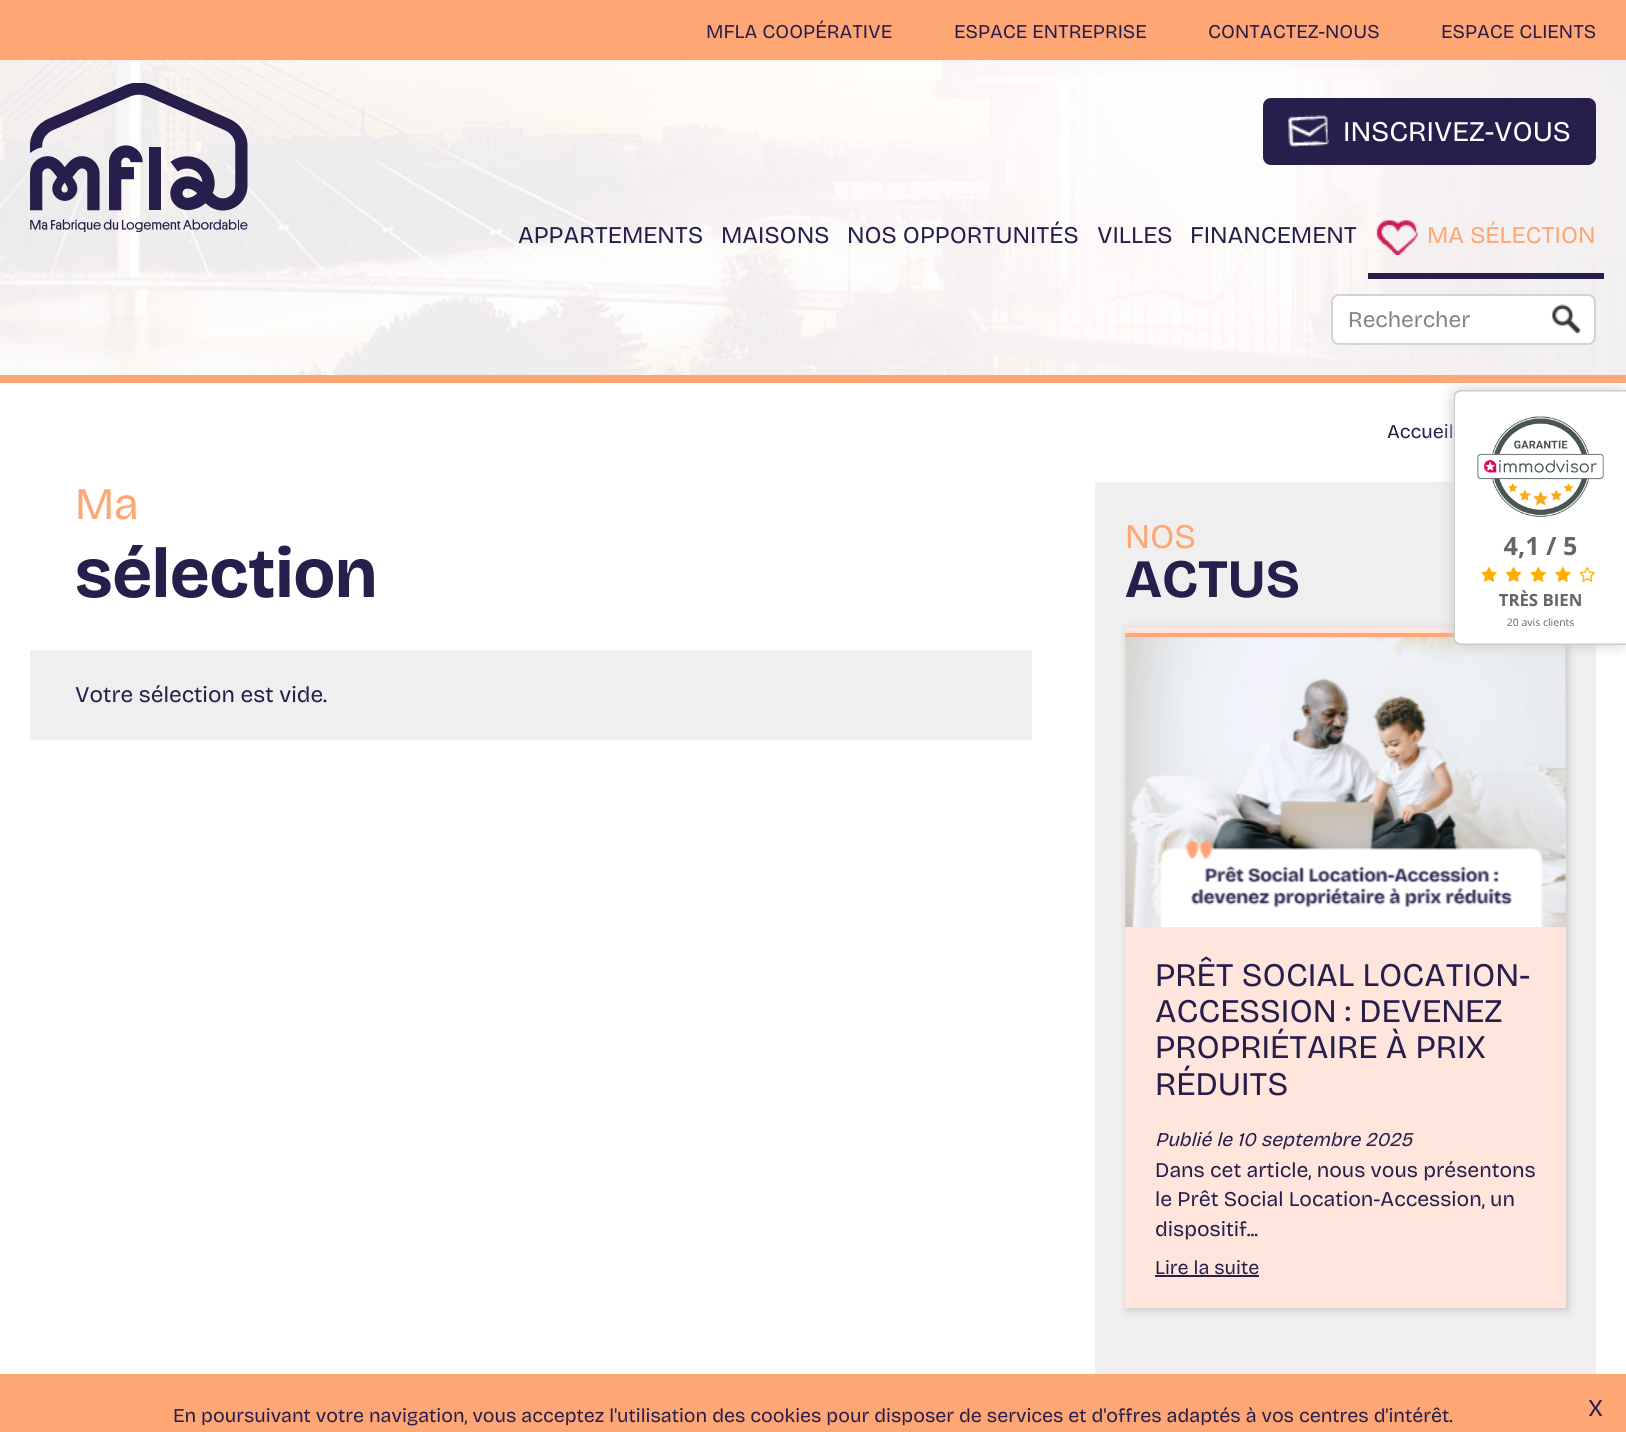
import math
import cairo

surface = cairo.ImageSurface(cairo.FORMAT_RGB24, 1626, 1432)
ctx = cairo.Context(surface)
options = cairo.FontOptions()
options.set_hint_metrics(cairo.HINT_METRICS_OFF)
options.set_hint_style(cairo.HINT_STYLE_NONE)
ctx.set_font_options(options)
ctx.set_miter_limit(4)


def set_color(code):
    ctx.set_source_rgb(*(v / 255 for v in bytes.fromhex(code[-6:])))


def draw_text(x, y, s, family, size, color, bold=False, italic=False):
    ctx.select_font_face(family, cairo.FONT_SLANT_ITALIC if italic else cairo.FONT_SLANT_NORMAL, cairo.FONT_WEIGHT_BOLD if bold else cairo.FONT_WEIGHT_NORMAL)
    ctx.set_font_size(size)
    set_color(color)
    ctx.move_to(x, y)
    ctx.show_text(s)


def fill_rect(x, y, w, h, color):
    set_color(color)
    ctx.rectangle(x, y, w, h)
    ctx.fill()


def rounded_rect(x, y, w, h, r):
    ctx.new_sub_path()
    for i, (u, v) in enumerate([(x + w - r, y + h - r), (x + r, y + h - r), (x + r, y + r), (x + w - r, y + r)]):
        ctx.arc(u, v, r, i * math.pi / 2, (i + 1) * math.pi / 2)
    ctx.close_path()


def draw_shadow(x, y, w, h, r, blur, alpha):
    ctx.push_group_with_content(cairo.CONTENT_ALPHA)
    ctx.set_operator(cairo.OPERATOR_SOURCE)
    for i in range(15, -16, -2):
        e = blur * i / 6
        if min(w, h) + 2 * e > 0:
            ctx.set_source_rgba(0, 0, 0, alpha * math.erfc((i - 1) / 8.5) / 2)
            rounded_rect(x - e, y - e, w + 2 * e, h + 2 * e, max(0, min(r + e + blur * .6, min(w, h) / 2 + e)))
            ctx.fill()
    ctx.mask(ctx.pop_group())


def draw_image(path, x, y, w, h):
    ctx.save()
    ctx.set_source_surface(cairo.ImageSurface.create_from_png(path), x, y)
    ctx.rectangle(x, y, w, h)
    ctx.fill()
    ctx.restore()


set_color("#ffffff")
ctx.paint()
fill_rect(0, 0, 1626, 60, "#ffa675")
draw_text(706, 38, "MFLA COOPÉRATIVE", "Bricolage Grotesque", 19.5, "#271e4c")
draw_text(954, 38, "ESPACE ENTREPRISE", "Bricolage Grotesque", 19.5, "#271e4c")
draw_text(1208, 38, "CONTACTEZ-NOUS", "Bricolage Grotesque", 19.5, "#271e4c")
draw_text(1441, 38, "ESPACE CLIENTS", "Bricolage Grotesque", 19.5, "#271e4c")
draw_image("assets/img1.png", 0, 60, 1626, 315)
fill_rect(0, 375, 1626, 8, "#ffa675")
draw_image("assets/img2.png", 30, 83, 218, 150)
set_color("#271e4c")
rounded_rect(1263, 98, 333, 67, 8)
ctx.fill()
draw_image("assets/img3.png", 1288, 115, 41, 32)
draw_text(1343, 141, "INSCRIVEZ-VOUS", "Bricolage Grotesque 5", 28.5, "#ffffff")
draw_text(518, 243, "APPARTEMENTS", "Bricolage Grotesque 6", 24, "#271e4c")
draw_text(721, 243, "MAISONS", "Bricolage Grotesque 6", 24, "#271e4c")
draw_text(847, 243, "NOS OPPORTUNITÉS", "Bricolage Grotesque 6", 24, "#271e4c")
draw_text(1097, 243, "VILLES", "Bricolage Grotesque 6", 24, "#271e4c")
draw_text(1190, 243, "FINANCEMENT", "Bricolage Grotesque 6", 24, "#271e4c")
draw_image("assets/img4.png", 1376, 220, 42, 35)
draw_text(1427, 243, "MA SÉLECTION", "Bricolage Grotesque 6", 24, "#ffa675")
fill_rect(1368, 273, 236, 6, "#271e4c")
set_color("#ffffff")
rounded_rect(1332, 295, 263, 49, 7)
ctx.fill_preserve()
set_color("#d3d3d3")
ctx.stroke()
draw_text(1348, 327, "Rechercher", "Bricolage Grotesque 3", 22.5, "#848484")
draw_image("assets/img5.png", 1551, 304, 30, 29)
draw_text(1387, 438, "Accueil", "Bricolage Grotesque", 19.5, "#271e4c")
draw_text(75, 519, "Ma", "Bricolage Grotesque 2", 45, "#ffa675")
draw_text(75, 597, "sélection", "Bricolage Grotesque", 70.5, "#271e4c", bold=True)
fill_rect(30, 650, 1002, 90, "#f0eeef")
draw_text(75, 702, "Votre sélection est vide.", "Bricolage Grotesque 3", 22.5, "#271e4c")
fill_rect(1095, 482, 501, 892, "#f0eeef")
draw_text(1125, 548, "NOS", "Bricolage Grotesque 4", 34.5, "#ffa675")
draw_text(1125, 597, "ACTUS", "Bricolage Grotesque 2", 54, "#271e4c", bold=True)
set_color("#c5c5c5")
draw_shadow(1127, 629, 441, 681, 0, 4, 1)
fill_rect(1125, 627, 441, 681, "#ffe5db")
draw_image("assets/img7.png", 1125, 633, 441, 294)
draw_image("assets/img6.png", 1565, 645, 1, 282)
draw_text(1155, 986, "PRÊT SOCIAL LOCATION-", "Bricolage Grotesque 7", 33, "#271e4c")
draw_text(1155, 1022, "ACCESSION : DEVENEZ", "Bricolage Grotesque 7", 33, "#271e4c")
draw_text(1155, 1058, "PROPRIÉTAIRE À PRIX", "Bricolage Grotesque 7", 33, "#271e4c")
draw_text(1155, 1095, "RÉDUITS", "Bricolage Grotesque 7", 33, "#271e4c")
draw_text(1155, 1146, "Publié le 10 septembre 2025", "Bricolage Grotesque", 19.5, "#271e4c", italic=True)
draw_text(1155, 1177, "Dans cet article, nous vous présentons", "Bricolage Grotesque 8", 21, "#271e4c")
draw_text(1155, 1206, "le Prêt Social Location-Accession, un", "Bricolage Grotesque 8", 21, "#271e4c")
draw_text(1155, 1236, "dispositif...", "Bricolage Grotesque 8", 21, "#271e4c")
draw_text(1155, 1274, "Lire la suite", "Bricolage Grotesque", 19.5, "#271e4c")
fill_rect(1155, 1275, 104, 2, "#271e4c")
draw_image("assets/img8.png", 1439, 378, 187, 278)
fill_rect(0, 1374, 1626, 58, "#ffa675")
draw_text(173, 1422, "En poursuivant votre navigation, vous acceptez l'utilisation des cookies pour disposer de services et d'offres adaptés à vos centres d'intérêt.", "Bricolage Grotesque", 19.5, "#271e4c")
draw_text(1588, 1416, "X", "Bricolage Grotesque 6", 24, "#271e4c")
surface.write_to_png("output.png")
